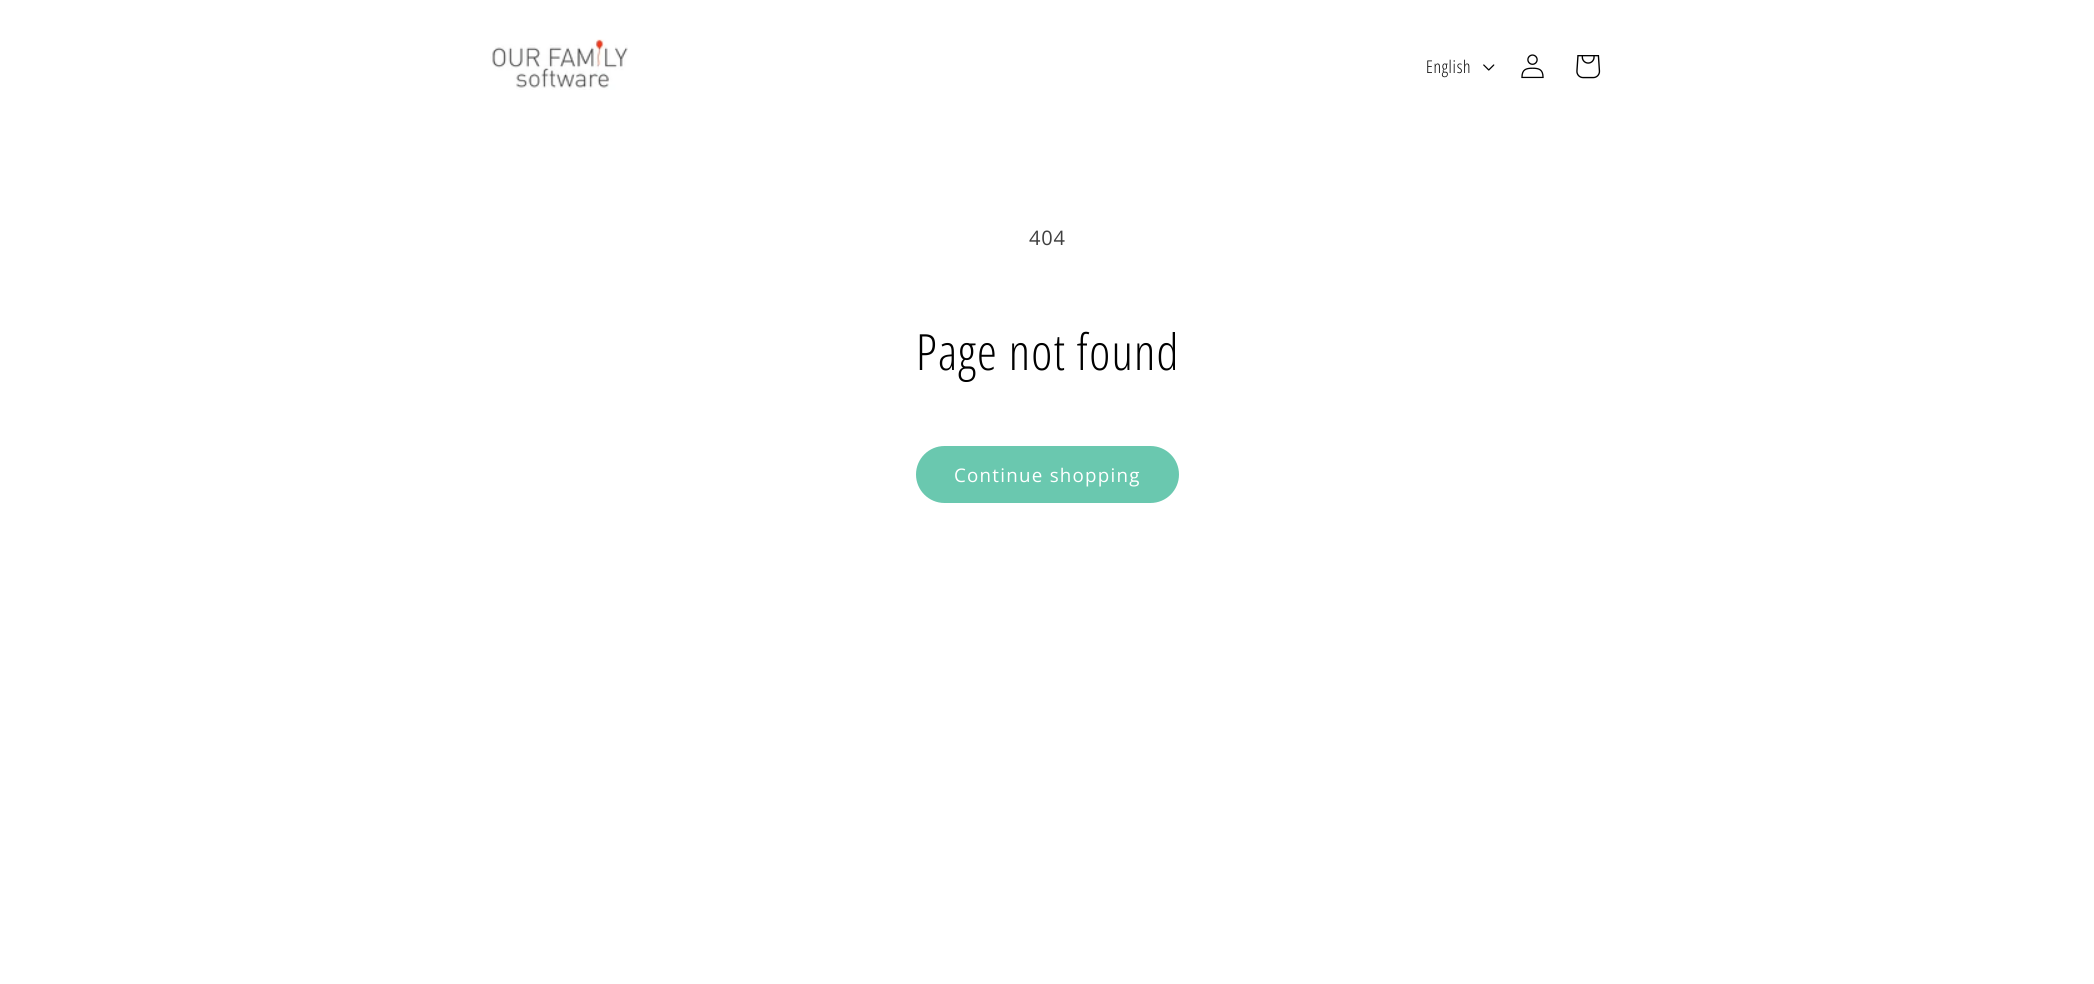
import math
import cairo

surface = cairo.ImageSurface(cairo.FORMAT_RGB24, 2094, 984)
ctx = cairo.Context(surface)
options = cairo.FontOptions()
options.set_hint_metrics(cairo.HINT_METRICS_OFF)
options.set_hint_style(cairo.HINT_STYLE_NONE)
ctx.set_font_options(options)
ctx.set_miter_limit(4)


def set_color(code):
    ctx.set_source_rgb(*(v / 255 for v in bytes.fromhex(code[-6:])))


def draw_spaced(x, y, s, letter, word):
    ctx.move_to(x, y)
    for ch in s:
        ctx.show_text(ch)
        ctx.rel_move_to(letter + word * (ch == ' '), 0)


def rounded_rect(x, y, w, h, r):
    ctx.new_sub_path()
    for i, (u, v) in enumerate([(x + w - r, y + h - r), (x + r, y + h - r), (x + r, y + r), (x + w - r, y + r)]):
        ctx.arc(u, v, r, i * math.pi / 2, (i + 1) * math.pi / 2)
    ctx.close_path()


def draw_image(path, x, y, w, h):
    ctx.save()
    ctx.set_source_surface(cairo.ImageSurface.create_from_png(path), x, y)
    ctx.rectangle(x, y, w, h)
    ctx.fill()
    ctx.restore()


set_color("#ffffff")
ctx.paint()
draw_image("assets/img1.png", 490, 39, 138, 51)
ctx.select_font_face("Open Sans Condensed Light")
ctx.set_font_size(17.5)
set_color("#000000")
draw_spaced(1426, 73, "English", 0.75, 0)
draw_image("assets/img2.png", 1483, 64, 12, 7)
draw_image("assets/img3.png", 1521, 54, 23, 25)
draw_image("assets/img4.png", 1576, 55, 25, 24)
ctx.select_font_face("Open Sans")
ctx.set_font_size(20)
set_color("#404040")
draw_spaced(1029, 245, "404", 0.75, 0)
ctx.select_font_face("Open Sans Condensed Light")
ctx.set_font_size(50)
set_color("#000000")
draw_spaced(916, 370, "Page not found", 1.25, 0)
set_color("#6ac8af")
rounded_rect(916, 446, 263, 57, 28.5)
ctx.fill()
ctx.select_font_face("Open Sans")
ctx.set_font_size(18.75)
set_color("#ffffff")
draw_spaced(954, 482, "Continue shopping", 1.25, 0)
surface.write_to_png("output.png")
